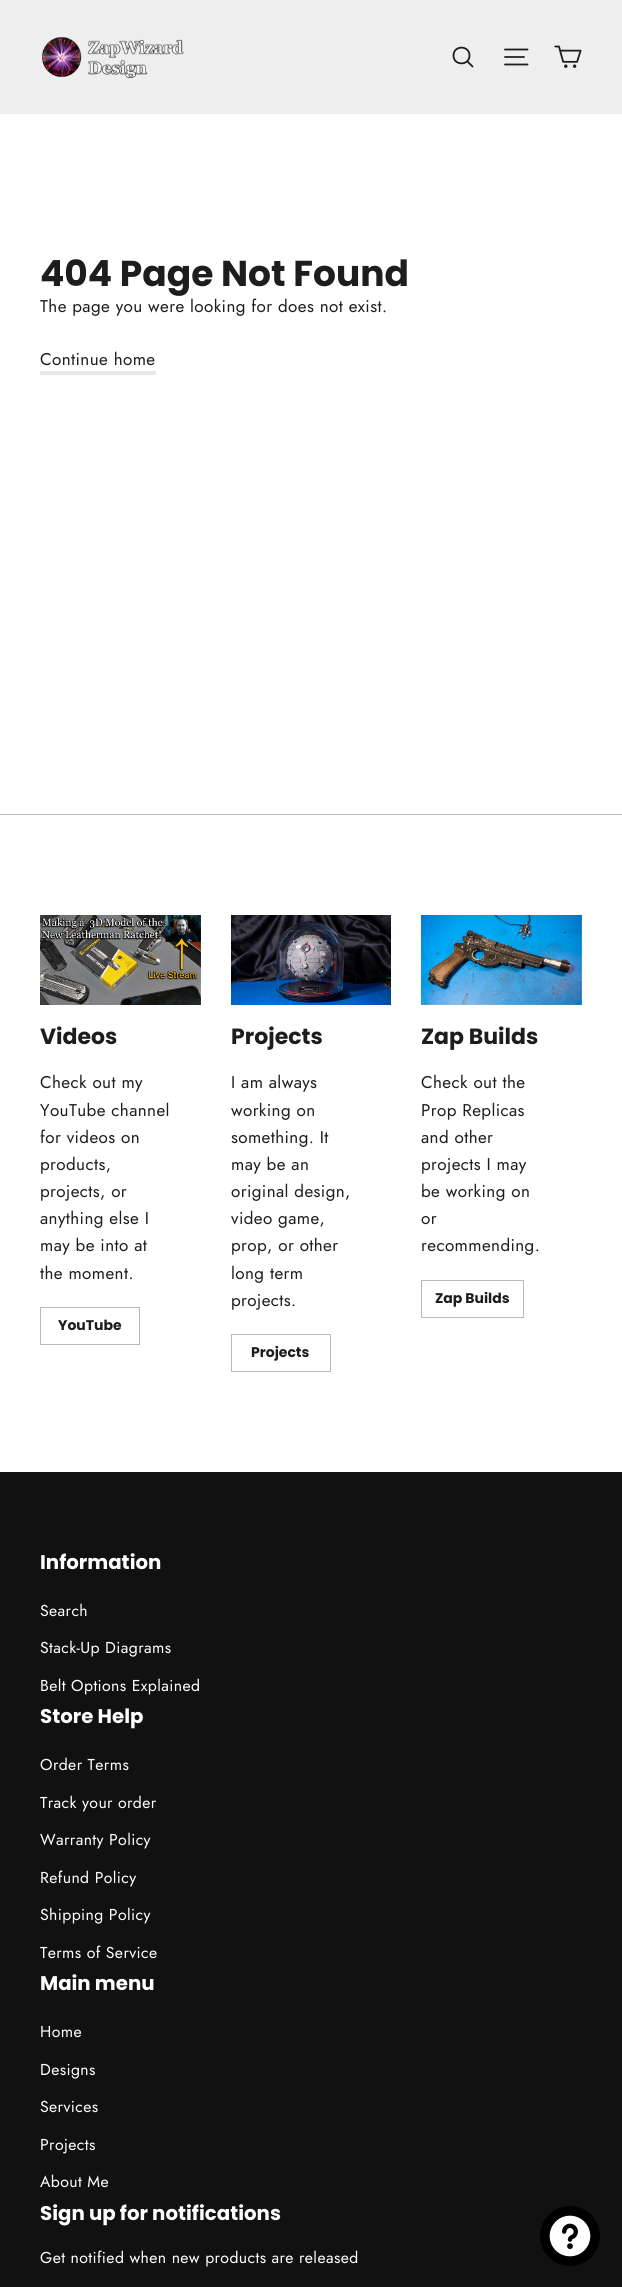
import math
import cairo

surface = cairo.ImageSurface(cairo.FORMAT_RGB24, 622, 2287)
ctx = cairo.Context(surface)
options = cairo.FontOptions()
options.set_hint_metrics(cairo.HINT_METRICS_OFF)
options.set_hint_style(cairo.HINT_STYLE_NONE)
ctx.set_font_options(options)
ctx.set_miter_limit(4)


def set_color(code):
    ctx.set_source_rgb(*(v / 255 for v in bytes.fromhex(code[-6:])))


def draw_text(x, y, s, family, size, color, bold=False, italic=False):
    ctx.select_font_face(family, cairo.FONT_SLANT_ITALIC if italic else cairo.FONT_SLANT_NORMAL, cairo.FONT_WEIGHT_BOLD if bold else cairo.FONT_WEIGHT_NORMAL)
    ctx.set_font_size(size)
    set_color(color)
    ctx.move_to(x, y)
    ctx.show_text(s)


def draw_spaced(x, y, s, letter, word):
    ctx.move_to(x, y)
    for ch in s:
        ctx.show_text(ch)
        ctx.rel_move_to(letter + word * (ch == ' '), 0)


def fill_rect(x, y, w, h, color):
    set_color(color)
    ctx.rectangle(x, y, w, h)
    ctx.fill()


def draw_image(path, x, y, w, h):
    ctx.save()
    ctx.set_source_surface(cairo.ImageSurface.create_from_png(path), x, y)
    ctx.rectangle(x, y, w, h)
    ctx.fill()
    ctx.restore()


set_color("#ffffff")
ctx.paint()
fill_rect(0, 0, 622, 114, "#eeeeee")
draw_image("assets/img1.png", 42, 37, 142, 42)
ctx.new_path()
ctx.move_to(469.5, 55.5)
ctx.curve_to(469.5, 66, 453.5, 66, 453.5, 55.5)
ctx.curve_to(453.5, 45, 469.5, 45, 469.5, 55.5)
ctx.close_path()
ctx.move_to(472.5, 66.5)
ctx.line_to(467.5, 61.5)
set_color("#1c1d1d")
ctx.set_line_width(1.8)
ctx.set_line_cap(cairo.LINE_CAP_ROUND)
ctx.set_line_join(cairo.LINE_JOIN_ROUND)
ctx.stroke()
ctx.new_path()
ctx.move_to(505, 49.5)
ctx.line_to(527.5, 49.5)
ctx.move_to(505, 57)
ctx.line_to(524, 57)
ctx.move_to(505, 64.5)
ctx.line_to(527.5, 64.5)
ctx.stroke()
draw_image("assets/img2.png", 554, 45, 28, 23)
draw_text(40, 286, "404 Page Not Found", "Poppins", 36, "#1c1d1d", bold=True)
ctx.select_font_face("Jost")
ctx.set_font_size(17)
draw_spaced(40, 312, "The page you were looking for does not exist.", 0.4, 0)
draw_spaced(40, 365, "Continue home", 0.4, 0)
fill_rect(40, 371, 116, 4, "#e8e8e8")
fill_rect(0, 814, 622, 1, "#b9b9b9")
draw_image("assets/img3.png", 40, 915, 161, 90)
draw_text(40, 1044, "Videos", "Poppins", 22, "#1c1d1d", bold=True)
ctx.select_font_face("Jost")
ctx.set_font_size(17)
draw_spaced(40, 1088, "Check out my", 0.4, 0)
draw_spaced(40, 1116, "YouTube channel", 0.4, 0)
draw_spaced(40, 1143, "for videos on", 0.4, 0)
draw_spaced(40, 1170, "products,", 0.4, 0)
draw_spaced(40, 1197, "projects, or", 0.4, 0)
draw_spaced(40, 1224, "anything else I", 0.4, 0)
draw_spaced(40, 1251, "may be into at", 0.4, 0)
draw_spaced(40, 1279, "the moment.", 0.4, 0)
ctx.rectangle(40.5, 1307.5, 99, 37)
set_color("#b9b9b9")
ctx.set_line_width(1)
ctx.set_line_cap(cairo.LINE_CAP_BUTT)
ctx.set_line_join(cairo.LINE_JOIN_MITER)
ctx.stroke()
draw_text(58, 1330, "YouTube", "Poppins", 14, "#1c1d1d", bold=True)
draw_image("assets/img4.png", 231, 915, 160, 90)
draw_text(231, 1044, "Projects", "Poppins", 22, "#1c1d1d", bold=True)
ctx.select_font_face("Jost")
ctx.set_font_size(17)
draw_spaced(231, 1088, "I am always", 0.4, 0)
draw_spaced(231, 1116, "working on", 0.4, 0)
draw_spaced(231, 1143, "something. It", 0.4, 0)
draw_spaced(231, 1170, "may be an", 0.4, 0)
draw_spaced(231, 1197, "original design,", 0.4, 0)
draw_spaced(231, 1224, "video game,", 0.4, 0)
draw_spaced(231, 1251, "prop, or other", 0.4, 0)
draw_spaced(231, 1279, "long term", 0.4, 0)
draw_spaced(231, 1306, "projects.", 0.4, 0)
ctx.rectangle(231.5, 1334.5, 99, 37)
set_color("#b9b9b9")
ctx.stroke()
draw_text(251, 1357, "Projects", "Poppins", 14, "#1c1d1d", bold=True)
draw_image("assets/img5.png", 421, 915, 161, 90)
draw_text(421, 1044, "Zap Builds", "Poppins", 22, "#1c1d1d", bold=True)
ctx.select_font_face("Jost")
ctx.set_font_size(17)
draw_spaced(421, 1088, "Check out the", 0.4, 0)
draw_spaced(421, 1116, "Prop Replicas", 0.4, 0)
draw_spaced(421, 1143, "and other", 0.4, 0)
draw_spaced(421, 1170, "projects I may", 0.4, 0)
draw_spaced(421, 1197, "be working on", 0.4, 0)
draw_spaced(421, 1224, "or", 0.4, 0)
draw_spaced(421, 1251, "recommending.", 0.4, 0)
ctx.rectangle(421.5, 1280.5, 102, 37)
set_color("#b9b9b9")
ctx.stroke()
draw_text(435, 1303, "Zap Builds", "Poppins", 14, "#1c1d1d", bold=True)
fill_rect(0, 1472, 622, 815, "#111111")
draw_text(40, 1569, "Information", "Poppins", 19.75, "#ffffff", bold=True)
ctx.select_font_face("Jost")
ctx.set_font_size(15.8)
draw_spaced(40, 1616, "Search", 0.4, 0)
draw_spaced(40, 1653, "Stack-Up Diagrams", 0.4, 0)
draw_spaced(40, 1691, "Belt Options Explained", 0.4, 0)
draw_text(40, 1723, "Store Help", "Poppins", 19.75, "#ffffff", bold=True)
ctx.select_font_face("Jost")
ctx.set_font_size(15.8)
draw_spaced(40, 1770, "Order Terms", 0.4, 0)
draw_spaced(40, 1808, "Track your order", 0.4, 0)
draw_spaced(40, 1845, "Warranty Policy", 0.4, 0)
draw_spaced(40, 1883, "Refund Policy", 0.4, 0)
draw_spaced(40, 1920, "Shipping Policy", 0.4, 0)
draw_spaced(40, 1958, "Terms of Service", 0.4, 0)
draw_text(40, 1990, "Main menu", "Poppins", 19.75, "#ffffff", bold=True)
ctx.select_font_face("Jost")
ctx.set_font_size(15.8)
draw_spaced(40, 2037, "Home", 0.4, 0)
draw_spaced(40, 2075, "Designs", 0.4, 0)
draw_spaced(40, 2112, "Services", 0.4, 0)
draw_spaced(40, 2150, "Projects", 0.4, 0)
draw_spaced(40, 2187, "About Me", 0.4, 0)
draw_text(40, 2220, "Sign up for notifications", "Poppins", 19.75, "#ffffff", bold=True)
ctx.select_font_face("Jost")
ctx.set_font_size(15.8)
draw_spaced(40, 2263, "Get notified when new products are released", 0.4, 0)
set_color("#000000")
ctx.new_path()
ctx.arc(570, 2236, 30, 0, 2 * math.pi)
ctx.fill()
draw_image("assets/img6.png", 549, 2215, 42, 42)
surface.write_to_png("output.png")
